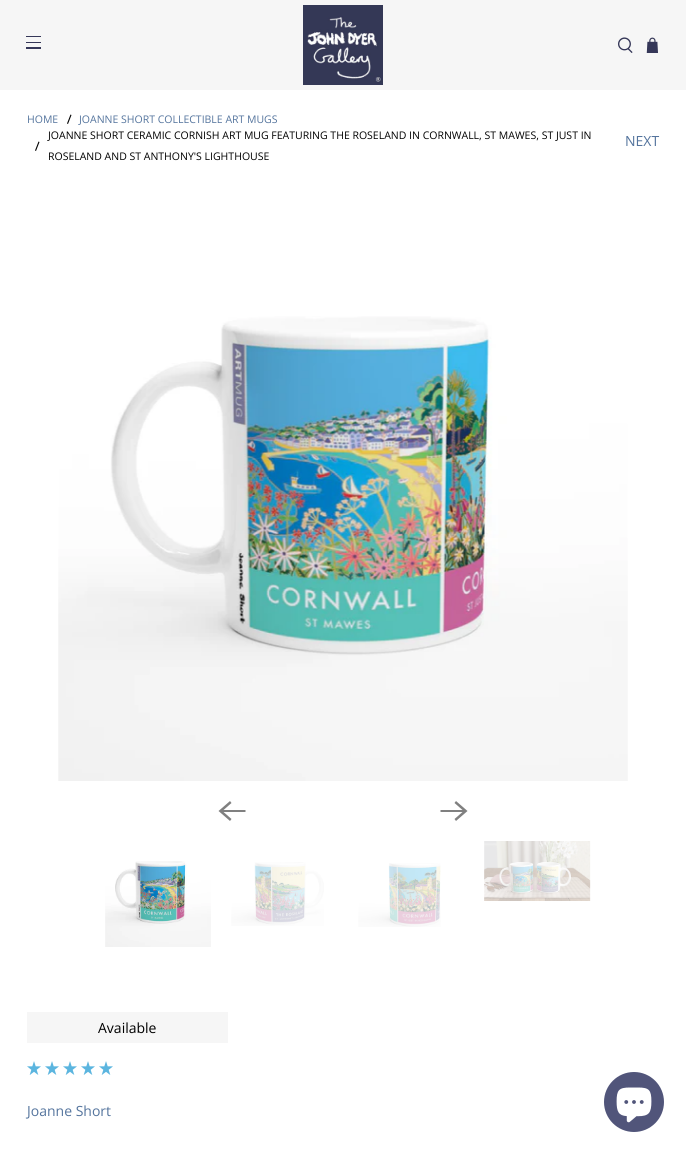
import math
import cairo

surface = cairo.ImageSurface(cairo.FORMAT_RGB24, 686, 1153)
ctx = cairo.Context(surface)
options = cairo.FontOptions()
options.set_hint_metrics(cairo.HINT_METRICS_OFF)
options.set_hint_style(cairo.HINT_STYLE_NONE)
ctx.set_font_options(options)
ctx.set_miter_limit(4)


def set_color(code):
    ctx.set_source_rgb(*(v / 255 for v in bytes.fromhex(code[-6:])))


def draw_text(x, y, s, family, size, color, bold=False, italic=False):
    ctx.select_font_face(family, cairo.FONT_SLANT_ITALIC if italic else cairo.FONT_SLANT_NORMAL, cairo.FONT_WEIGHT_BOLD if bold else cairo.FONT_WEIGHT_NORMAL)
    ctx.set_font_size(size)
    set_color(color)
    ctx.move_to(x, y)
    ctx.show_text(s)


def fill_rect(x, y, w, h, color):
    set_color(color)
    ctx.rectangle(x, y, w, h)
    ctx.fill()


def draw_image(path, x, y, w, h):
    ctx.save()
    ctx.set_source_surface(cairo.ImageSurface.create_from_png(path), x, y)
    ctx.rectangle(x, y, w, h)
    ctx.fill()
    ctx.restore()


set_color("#ffffff")
ctx.paint()
fill_rect(0, 0, 686, 90, "#f6f6f6")
fill_rect(26, 36, 15, 1, "#353758")
fill_rect(26, 42, 15, 1, "#353758")
fill_rect(26, 47, 15, 2, "#353758")
draw_image("assets/img1.png", 303, 5, 80, 80)
draw_image("assets/img2.png", 618, 37, 15, 16)
draw_image("assets/img3.png", 646, 37, 12, 16)
draw_text(27, 123, "HOME", "Open Sans", 10.5, "#54749d")
set_color("#000000")
ctx.new_path()
ctx.move_to(67, 123.5)
ctx.line_to(70.5, 114.5)
ctx.line_to(71.5, 115)
ctx.line_to(68, 124)
ctx.close_path()
ctx.move_to(35, 150.5)
ctx.line_to(38.5, 141.5)
ctx.line_to(39.5, 142)
ctx.line_to(36, 151)
ctx.close_path()
ctx.fill()
draw_text(79, 123, "JOANNE SHORT COLLECTIBLE ART MUGS", "Open Sans", 10.5, "#54749d")
draw_text(48, 139, "JOANNE SHORT CERAMIC CORNISH ART MUG FEATURING THE ROSELAND IN CORNWALL, ST MAWES, ST JUST IN", "Open Sans", 10.5, "#000000")
draw_text(48, 160, "ROSELAND AND ST ANTHONY'S LIGHTHOUSE", "Open Sans", 10.5, "#000000")
draw_text(625, 146, "NEXT", "Open Sans", 14, "#54749d")
draw_image("assets/img4.png", 58, 316, 570, 465)
set_color("#808080")
ctx.new_path()
ctx.move_to(245.5, 810)
ctx.line_to(223.5, 810)
ctx.line_to(231.5, 803)
ctx.line_to(230, 801)
ctx.line_to(218.5, 811)
ctx.line_to(230, 821)
ctx.line_to(231.5, 819)
ctx.line_to(223.5, 812)
ctx.line_to(245.5, 812)
ctx.close_path()
ctx.fill()
ctx.new_path()
ctx.move_to(440.5, 812)
ctx.line_to(462.5, 812)
ctx.line_to(454.5, 819)
ctx.line_to(456, 821)
ctx.line_to(467.5, 811)
ctx.line_to(456, 801)
ctx.line_to(454.5, 803)
ctx.line_to(462.5, 810)
ctx.line_to(440.5, 810)
ctx.close_path()
ctx.fill()
draw_image("assets/img5.png", 105, 861, 106, 86)
draw_image("assets/img6.png", 231, 862, 93, 64)
draw_image("assets/img7.png", 358, 863, 83, 64)
draw_image("assets/img8.png", 484, 841, 107, 60)
fill_rect(27, 1012, 201, 31, "#f6f6f6")
draw_text(98, 1033, "Available", "Open Sans", 14, "#000000")
draw_image("assets/img9.png", 27, 1061, 14, 14)
draw_image("assets/img9.png", 45, 1061, 14, 14)
draw_image("assets/img9.png", 63, 1061, 14, 14)
draw_image("assets/img9.png", 81, 1061, 14, 14)
draw_image("assets/img9.png", 99, 1061, 14, 14)
draw_text(27, 1116, "Joanne Short", "Open Sans", 14, "#54749d")
set_color("#51557a")
ctx.new_path()
ctx.arc(634, 1102, 30, 0, 2 * math.pi)
ctx.fill()
draw_image("assets/img10.png", 616, 1087, 36, 36)
surface.write_to_png("output.png")
